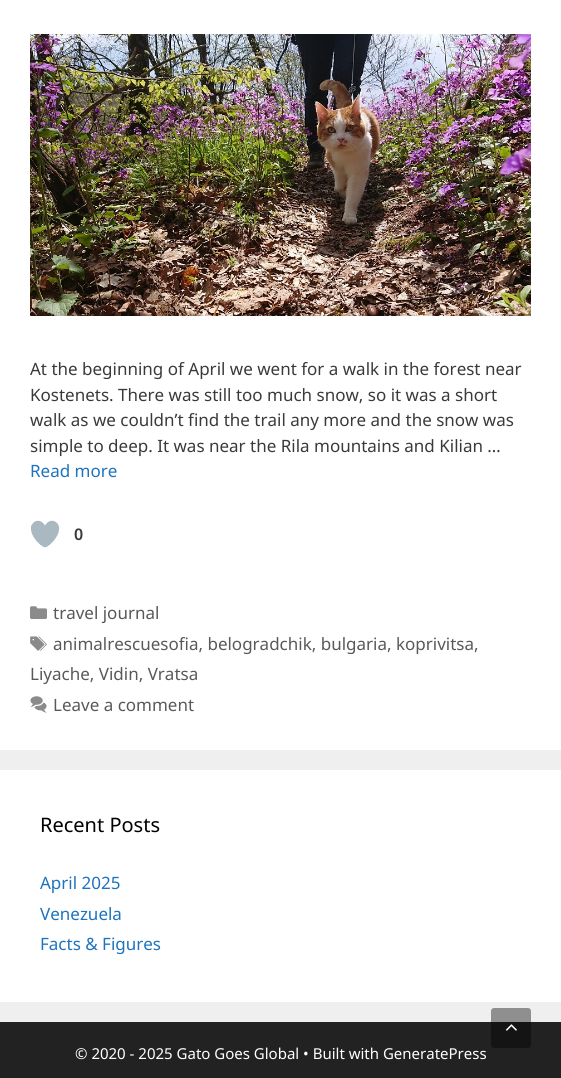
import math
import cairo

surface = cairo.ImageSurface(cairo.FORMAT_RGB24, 561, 1078)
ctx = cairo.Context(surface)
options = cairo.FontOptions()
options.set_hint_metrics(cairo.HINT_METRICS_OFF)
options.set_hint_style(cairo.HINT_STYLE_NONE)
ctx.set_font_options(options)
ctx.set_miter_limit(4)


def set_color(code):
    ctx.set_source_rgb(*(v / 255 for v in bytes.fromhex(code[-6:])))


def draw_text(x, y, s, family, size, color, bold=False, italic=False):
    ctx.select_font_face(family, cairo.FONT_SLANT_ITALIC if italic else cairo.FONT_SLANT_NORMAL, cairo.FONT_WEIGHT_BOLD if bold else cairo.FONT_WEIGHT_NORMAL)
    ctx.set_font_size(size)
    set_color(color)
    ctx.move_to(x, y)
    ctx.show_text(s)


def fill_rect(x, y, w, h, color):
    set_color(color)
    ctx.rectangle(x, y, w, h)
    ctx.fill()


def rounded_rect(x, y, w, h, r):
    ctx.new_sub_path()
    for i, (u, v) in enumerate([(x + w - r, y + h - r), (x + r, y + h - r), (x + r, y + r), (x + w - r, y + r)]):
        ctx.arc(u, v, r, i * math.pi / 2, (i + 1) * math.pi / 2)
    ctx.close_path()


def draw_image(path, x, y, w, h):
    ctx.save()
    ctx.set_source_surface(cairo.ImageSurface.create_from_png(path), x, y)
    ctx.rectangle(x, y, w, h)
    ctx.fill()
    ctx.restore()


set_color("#efefef")
ctx.paint()
fill_rect(0, 0, 561, 750, "#ffffff")
draw_image("assets/img1.png", 30, 34, 501, 282)
draw_text(30, 375, "At the beginning of April we went for a walk in the forest near", "Noto Sans", 17, "#3a3a3a")
draw_text(30, 401, "Kostenets. There was still too much snow, so it was a short", "Noto Sans", 17, "#3a3a3a")
draw_text(30, 426, "walk as we couldn’t find the trail any more and the snow was", "Noto Sans", 17, "#3a3a3a")
draw_text(30, 452, "simple to deep. It was near the Rila mountains and Kilian …", "Noto Sans", 17, "#3a3a3a")
draw_text(30, 477, "Read more", "Noto Sans", 17, "#1e73be")
draw_image("assets/img2.png", 30, 520, 30, 28)
draw_text(74, 540, "0", "Noto Sans SemiBold", 16, "#3a3a3a")
draw_image("assets/img3.png", 30, 606, 17, 13)
draw_text(53, 619, "travel journal", "Noto Sans", 17, "#595959")
draw_image("assets/img4.png", 30, 636, 17, 15)
draw_text(53, 650, "animalrescuesofia, belogradchik, bulgaria, koprivitsa,", "Noto Sans", 17, "#595959")
draw_text(30, 680, "Liyache, Vidin, Vratsa", "Noto Sans", 17, "#595959")
draw_image("assets/img5.png", 30, 696, 17, 17)
draw_text(53, 711, "Leave a comment", "Noto Sans", 17, "#595959")
fill_rect(0, 770, 561, 232, "#ffffff")
draw_text(40, 832, "Recent Posts", "Noto Sans", 20, "#000000")
draw_text(40, 889, "April 2025", "Noto Sans", 17, "#1e73be")
draw_text(40, 920, "Venezuela", "Noto Sans", 17, "#1e73be")
draw_text(40, 950, "Facts & Figures", "Noto Sans", 17, "#1e73be")
fill_rect(0, 1022, 561, 56, "#222222")
ctx.set_source_rgba(0, 0, 0, 0.4)
rounded_rect(491, 1008, 40, 40, 3)
ctx.fill()
draw_image("assets/img6.png", 505, 1024, 12, 7)
draw_text(75, 1059, "© 2020 - 2025 Gato Goes Global • Built with GeneratePress", "Noto Sans", 15, "#ffffff")
surface.write_to_png("output.png")
